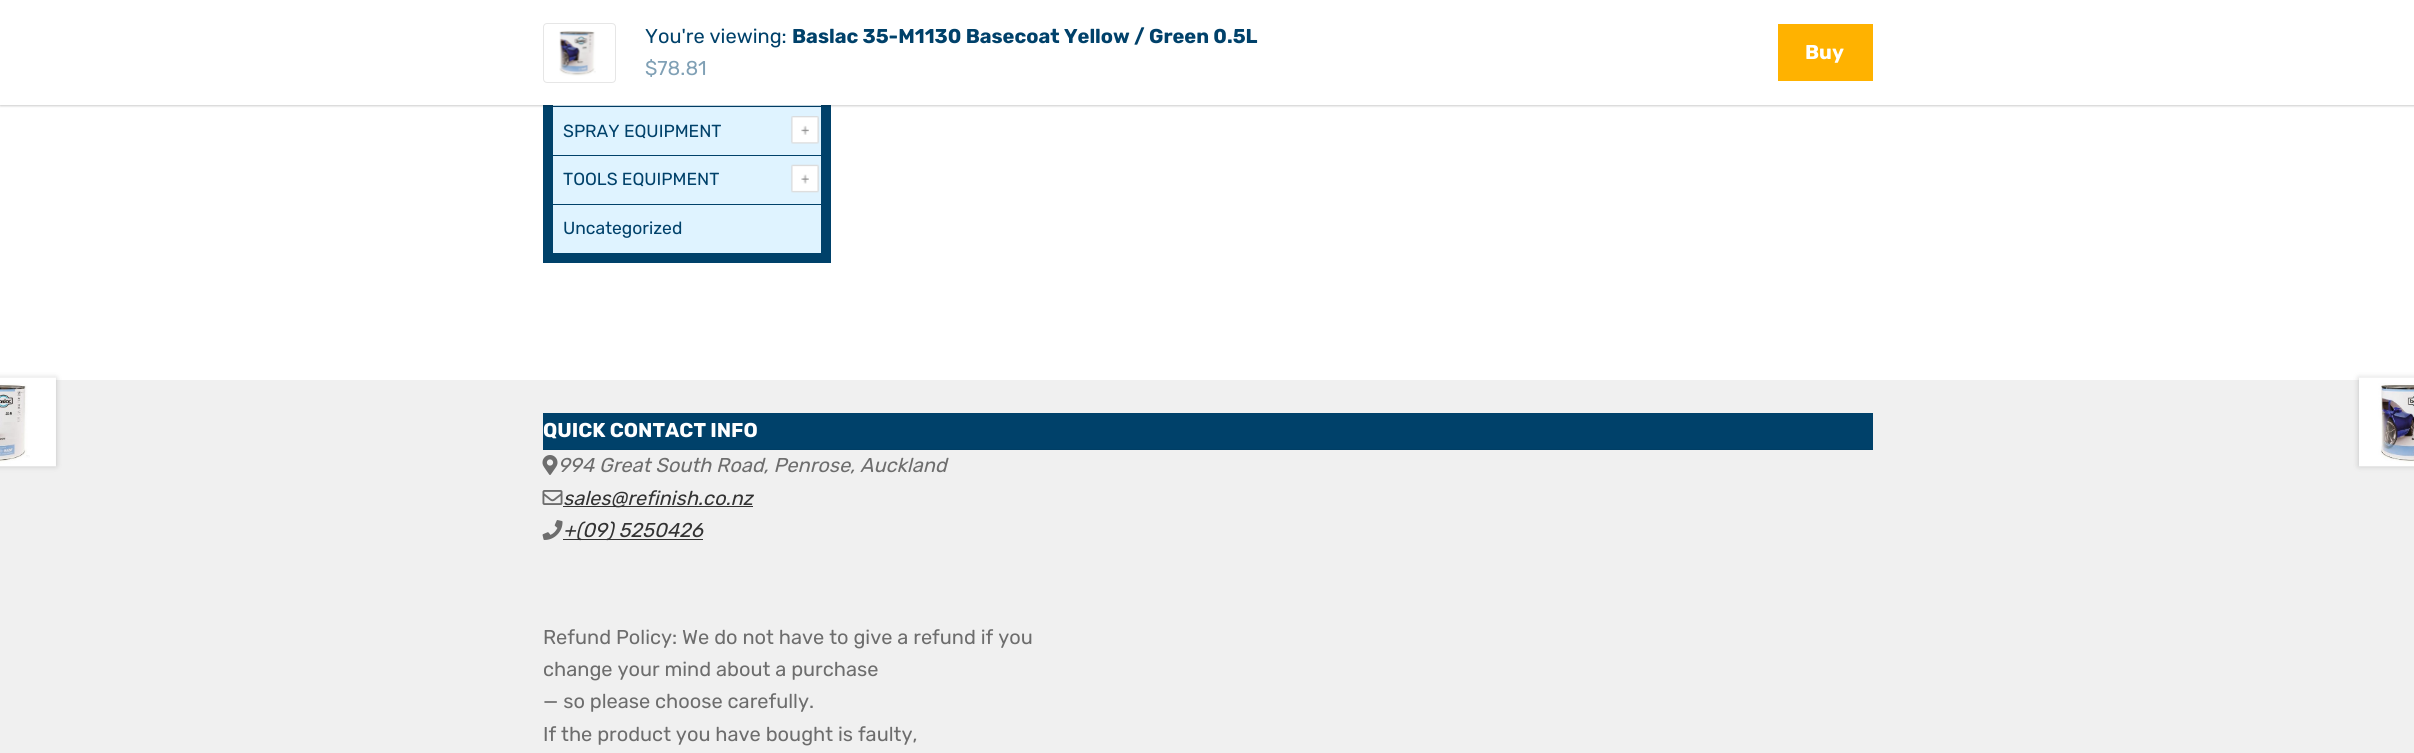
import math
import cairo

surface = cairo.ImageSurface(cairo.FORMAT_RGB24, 2414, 753)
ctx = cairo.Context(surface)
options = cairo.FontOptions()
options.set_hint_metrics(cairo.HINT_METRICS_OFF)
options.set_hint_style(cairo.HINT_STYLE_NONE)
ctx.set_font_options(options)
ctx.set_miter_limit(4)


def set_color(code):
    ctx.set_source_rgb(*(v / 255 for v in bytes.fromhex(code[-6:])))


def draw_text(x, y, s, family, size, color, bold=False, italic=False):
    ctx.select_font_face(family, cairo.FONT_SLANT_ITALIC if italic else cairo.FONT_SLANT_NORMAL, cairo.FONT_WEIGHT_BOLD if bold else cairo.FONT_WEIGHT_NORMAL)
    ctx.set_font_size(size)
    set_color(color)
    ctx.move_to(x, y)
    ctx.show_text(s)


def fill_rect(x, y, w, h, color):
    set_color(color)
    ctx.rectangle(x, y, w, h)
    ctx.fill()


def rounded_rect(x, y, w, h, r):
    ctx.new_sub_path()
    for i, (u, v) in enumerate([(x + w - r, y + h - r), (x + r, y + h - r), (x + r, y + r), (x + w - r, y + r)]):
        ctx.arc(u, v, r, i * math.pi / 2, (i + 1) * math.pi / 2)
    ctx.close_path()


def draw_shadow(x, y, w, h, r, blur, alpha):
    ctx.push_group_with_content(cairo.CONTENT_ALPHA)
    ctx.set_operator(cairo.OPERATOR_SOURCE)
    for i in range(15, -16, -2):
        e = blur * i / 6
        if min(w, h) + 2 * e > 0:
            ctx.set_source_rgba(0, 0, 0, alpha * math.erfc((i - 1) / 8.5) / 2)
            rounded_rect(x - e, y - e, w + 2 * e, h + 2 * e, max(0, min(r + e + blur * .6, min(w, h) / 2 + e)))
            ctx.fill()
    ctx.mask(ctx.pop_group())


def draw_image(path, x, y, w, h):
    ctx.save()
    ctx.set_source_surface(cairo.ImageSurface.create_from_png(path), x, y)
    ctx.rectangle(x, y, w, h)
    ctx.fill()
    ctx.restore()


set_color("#ffffff")
ctx.paint()
ctx.rectangle(548, -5, 278, 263)
set_color("#00416a")
ctx.set_line_width(10)
ctx.stroke()
fill_rect(553, 105, 268, 50, "#dff3ff")
fill_rect(553, 106, 268, 1, "#00416a")
set_color("#000000")
draw_shadow(0, 1, 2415, 105, 0, 1, 0.2)
fill_rect(0, 0, 2414, 105, "#ffffff")
rounded_rect(543.5, 23.5, 72, 59, 3.5)
set_color("#e6e6e6")
ctx.set_line_width(1)
ctx.stroke()
draw_image("assets/img1.png", 559, 31, 37, 45)
draw_text(645, 43, "You're viewing:", "Rubik", 20, "#00416a")
draw_text(792, 43, "Baslac 35-M1130 Basecoat Yellow / Green 0.5L", "Rubik", 20, "#00416a", bold=True)
draw_text(645, 75, "$78.81", "Rubik", 20, "#80a0b5")
fill_rect(1778, 24, 95, 57, "#ffb200")
draw_text(1805, 59, "Buy", "Rubik", 20, "#ffffff", bold=True)
fill_rect(553, 155, 268, 1, "#00416a")
draw_text(563, 137, "SPRAY EQUIPMENT", "Rubik", 17.5, "#00416a")
draw_image("assets/img2.png", 791, 116, 28, 28)
fill_rect(553, 156, 268, 48, "#dff3ff")
fill_rect(553, 204, 268, 1, "#00416a")
draw_text(563, 185, "TOOLS EQUIPMENT", "Rubik", 17.5, "#00416a")
draw_image("assets/img3.png", 791, 164, 28, 29)
fill_rect(553, 205, 268, 48, "#dff3ff")
draw_text(563, 234, "Uncategorized", "Rubik", 17.5, "#00416a")
fill_rect(0, 380, 2414, 373, "#f0f0f0")
set_color("#000000")
draw_shadow(-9, 378, 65, 88, 0, 3, 0.2)
draw_image("assets/img4.png", 0, 377, 56, 90)
draw_shadow(2359, 378, 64, 88, 0, 3, 0.2)
draw_image("assets/img5.png", 2359, 377, 55, 90)
fill_rect(543, 413, 1330, 36, "#00416a")
fill_rect(543, 449, 1330, 1, "#003e65")
draw_text(543, 437, "QUICK CONTACT INFO", "Rubik", 20, "#ffffff", bold=True)
draw_image("assets/img6.png", 542, 455, 16, 20)
draw_text(558, 472, "994 Great South Road, Penrose, Auckland", "Rubik", 20, "#6d6d6d", italic=True)
draw_image("assets/img7.png", 542, 490, 21, 15)
fill_rect(563, 506, 190, 1, "#333333")
draw_text(563, 505, "sales@refinish.co.nz", "Rubik", 20, "#333333", italic=True)
draw_image("assets/img8.png", 542, 520, 21, 20)
fill_rect(563, 539, 140, 1, "#333333")
draw_text(563, 537, "+(09) 5250426", "Rubik", 20, "#333333", italic=True)
draw_text(543, 644, "Refund Policy: We do not have to give a refund if you", "Rubik", 20, "#6d6d6d")
draw_text(543, 676, "change your mind about a purchase", "Rubik", 20, "#6d6d6d")
draw_text(543, 708, "— so please choose carefully.", "Rubik", 20, "#6d6d6d")
draw_text(543, 741, "If the product you have bought is faulty,", "Rubik", 20, "#6d6d6d")
surface.write_to_png("output.png")
